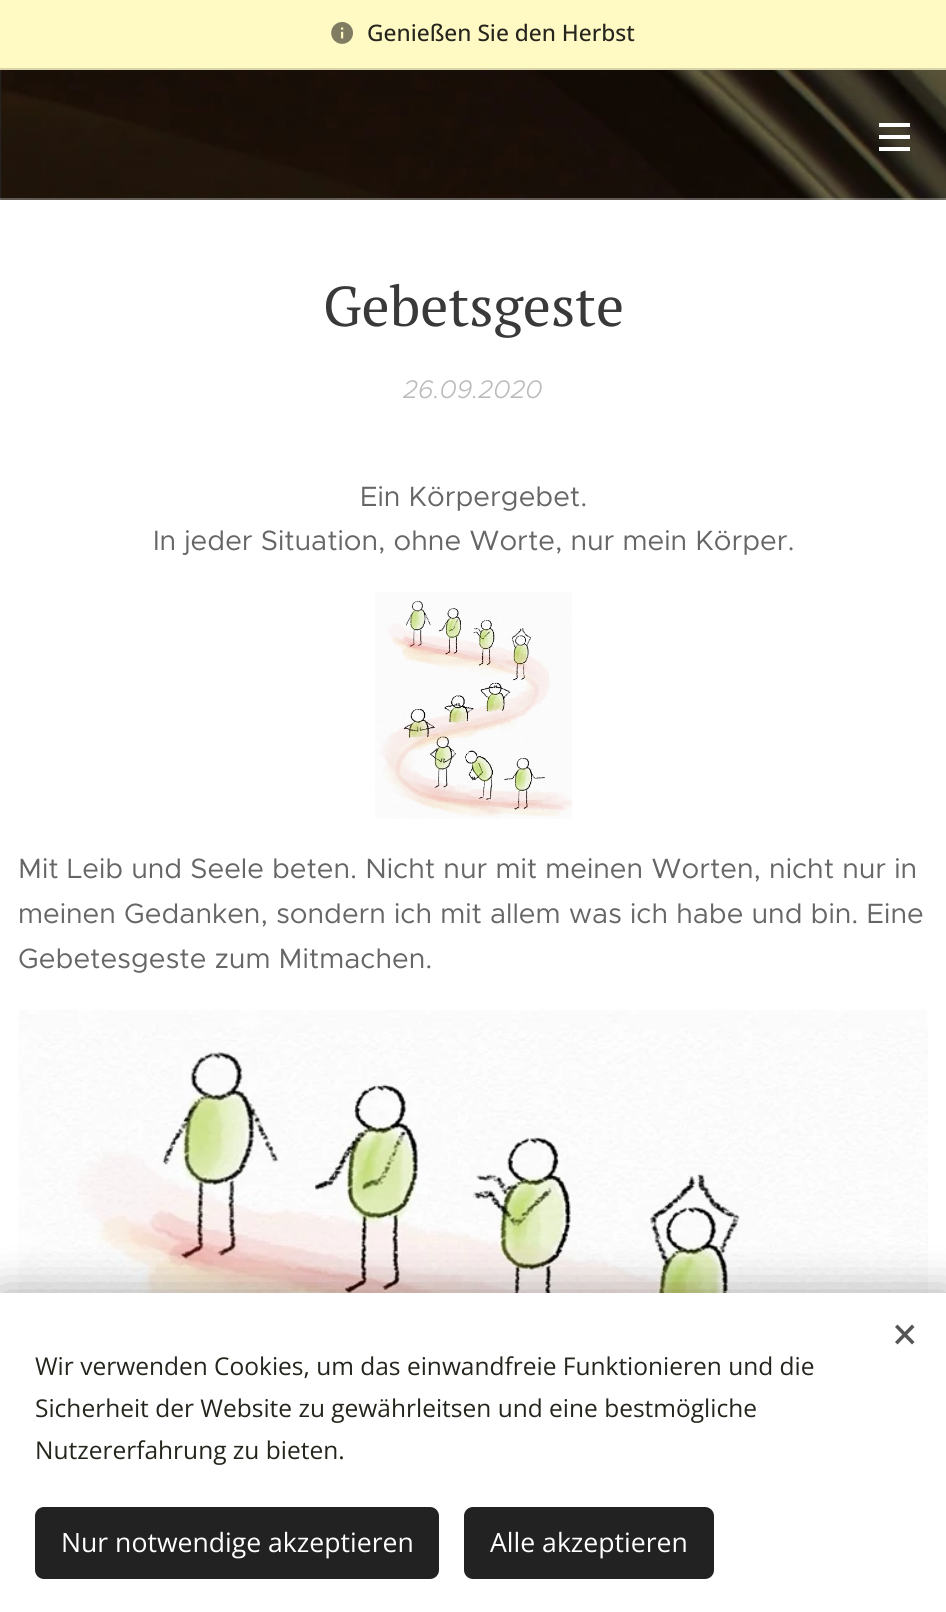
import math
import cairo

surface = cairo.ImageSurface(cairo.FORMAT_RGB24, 946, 1612)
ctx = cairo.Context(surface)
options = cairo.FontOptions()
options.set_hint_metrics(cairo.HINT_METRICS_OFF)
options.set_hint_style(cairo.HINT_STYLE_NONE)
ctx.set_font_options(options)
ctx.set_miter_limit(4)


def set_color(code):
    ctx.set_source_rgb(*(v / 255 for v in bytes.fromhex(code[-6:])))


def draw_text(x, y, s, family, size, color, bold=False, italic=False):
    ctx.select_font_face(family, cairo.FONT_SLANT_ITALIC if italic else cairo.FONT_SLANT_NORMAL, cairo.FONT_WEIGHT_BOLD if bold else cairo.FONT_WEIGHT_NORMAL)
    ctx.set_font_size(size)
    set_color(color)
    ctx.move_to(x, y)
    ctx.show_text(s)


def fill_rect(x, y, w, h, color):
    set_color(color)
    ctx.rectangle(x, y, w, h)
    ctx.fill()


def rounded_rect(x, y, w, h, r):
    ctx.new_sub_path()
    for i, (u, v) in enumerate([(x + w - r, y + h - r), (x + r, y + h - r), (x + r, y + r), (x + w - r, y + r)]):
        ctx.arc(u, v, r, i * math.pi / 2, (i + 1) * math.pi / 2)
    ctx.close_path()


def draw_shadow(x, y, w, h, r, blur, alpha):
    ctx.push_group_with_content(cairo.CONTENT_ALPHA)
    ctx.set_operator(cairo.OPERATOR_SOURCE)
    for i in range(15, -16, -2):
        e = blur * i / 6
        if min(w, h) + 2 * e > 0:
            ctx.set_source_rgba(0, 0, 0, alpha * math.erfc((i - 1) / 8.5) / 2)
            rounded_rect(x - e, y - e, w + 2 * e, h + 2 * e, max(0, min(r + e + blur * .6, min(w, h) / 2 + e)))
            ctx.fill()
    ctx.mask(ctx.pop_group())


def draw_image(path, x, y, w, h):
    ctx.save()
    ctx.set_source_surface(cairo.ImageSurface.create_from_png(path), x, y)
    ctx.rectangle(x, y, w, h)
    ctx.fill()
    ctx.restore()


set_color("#ffffff")
ctx.paint()
fill_rect(0, 0, 946, 68, "#fff9c4")
draw_image("assets/img1.png", 331, 22, 22, 22)
draw_text(367, 41, "Genießen Sie den Herbst", "Open Sans Medium", 22.75, "#26251d")
fill_rect(0, 68, 946, 2, "#d9d4a7")
fill_rect(0, 70, 2, 130, "#272727")
draw_image("assets/img2.png", 0, 70, 946, 130)
fill_rect(879, 135, 31, 4, "#ffffff")
fill_rect(879, 123, 31, 4, "#ffffff")
fill_rect(879, 147, 31, 4, "#ffffff")
ctx.set_source_rgba(1, 1, 1, 0.3)
ctx.rectangle(0, 198, 946, 2)
ctx.fill()
draw_text(323, 326, "Gebetsgeste", "PT Serif", 56, "#393939")
draw_text(403, 398, "26.09.2020", "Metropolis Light", 25.5, "#bababa", italic=True)
draw_text(360, 506, "Ein Körpergebet.", "Metropolis", 28, "#666666")
draw_text(153, 550, "In jeder Situation, ohne Worte, nur mein Körper.", "Metropolis", 28, "#666666")
draw_image("assets/img3.png", 375, 592, 197, 227)
draw_text(18, 878, "Mit Leib und Seele beten. Nicht nur mit meinen Worten, nicht nur in", "Metropolis", 28, "#666666")
draw_text(18, 923, "meinen Gedanken, sondern ich mit allem was ich habe und bin. Eine", "Metropolis", 28, "#666666")
draw_text(18, 968, "Gebetesgeste zum Mitmachen.", "Metropolis", 28, "#666666")
draw_image("assets/img4.png", 18, 1010, 910, 283)
set_color("#000000")
draw_shadow(0, 1293, 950, 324, 0, 22, 0.33)
fill_rect(0, 1293, 946, 319, "#ffffff")
set_color("#555555")
ctx.new_path()
ctx.move_to(895, 1342)
ctx.line_to(912, 1324.5)
ctx.line_to(914.5, 1327)
ctx.line_to(897.5, 1344.5)
ctx.close_path()
ctx.fill()
ctx.new_path()
ctx.move_to(897.5, 1324.5)
ctx.line_to(914.5, 1342)
ctx.line_to(912, 1344.5)
ctx.line_to(895, 1327)
ctx.close_path()
ctx.fill()
draw_text(35, 1375, "Wir verwenden Cookies, um das einwandfreie Funktionieren und die", "Open Sans", 24.5, "#26251d")
draw_text(35, 1417, "Sicherheit der Website zu gewährleitsen und eine bestmögliche", "Open Sans", 24.5, "#26251d")
draw_text(35, 1459, "Nutzererfahrung zu bieten.", "Open Sans", 24.5, "#26251d")
set_color("#222222")
rounded_rect(35, 1507, 404, 72, 9)
ctx.fill()
draw_text(61, 1552, "Nur notwendige akzeptieren", "Open Sans", 26.6, "#ffffff")
set_color("#222222")
rounded_rect(464, 1507, 250, 72, 9)
ctx.fill()
draw_text(490, 1552, "Alle akzeptieren", "Open Sans", 26.6, "#ffffff")
surface.write_to_png("output.png")
